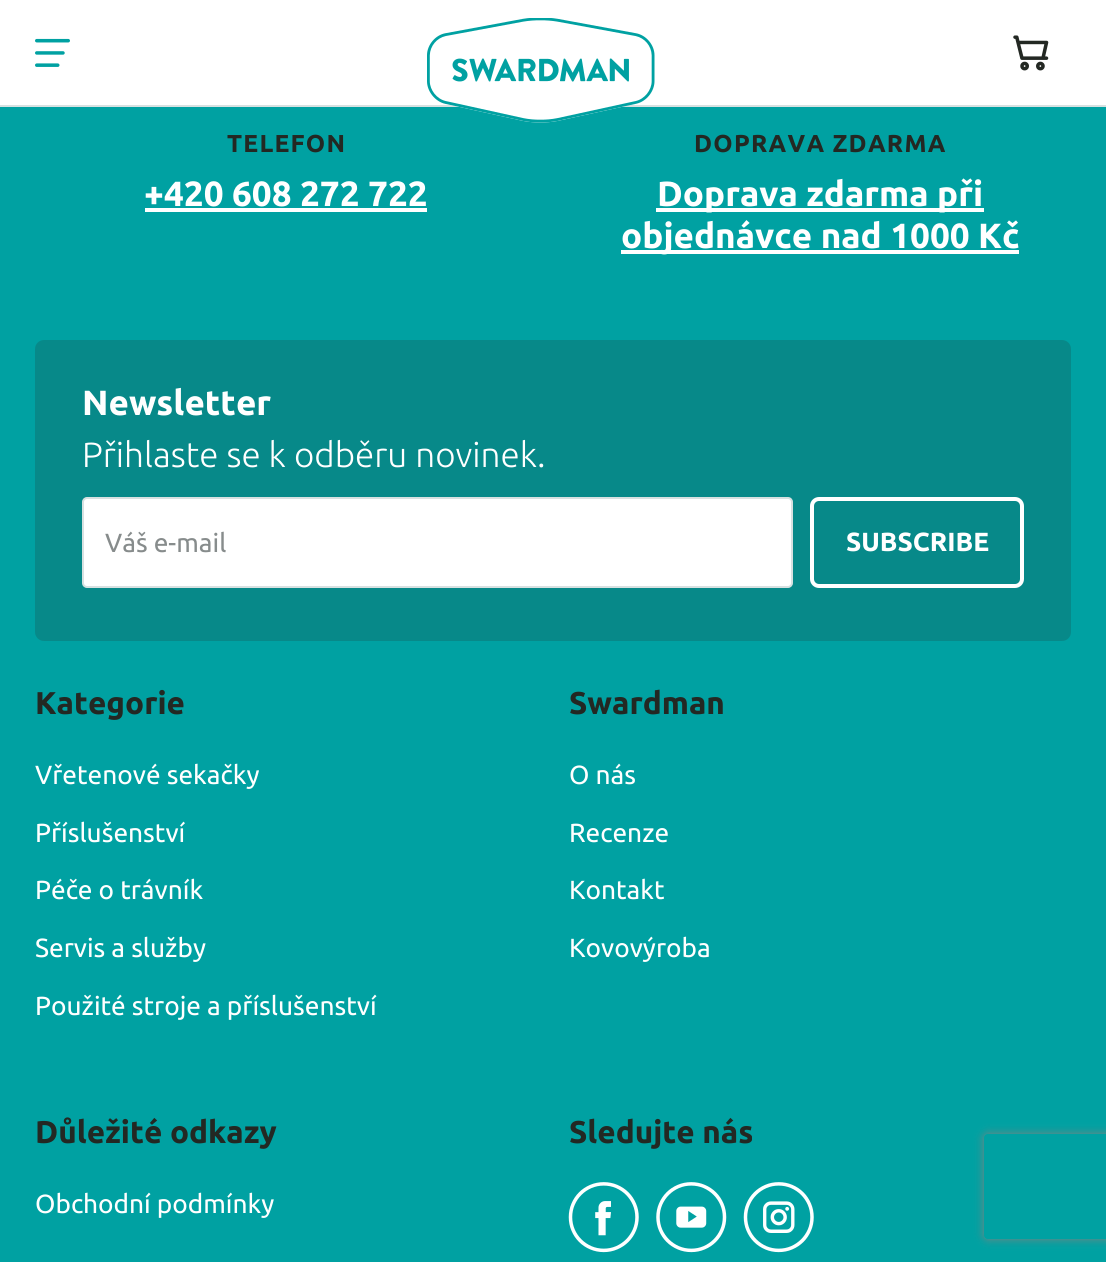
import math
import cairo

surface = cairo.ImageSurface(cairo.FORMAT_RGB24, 1106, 1262)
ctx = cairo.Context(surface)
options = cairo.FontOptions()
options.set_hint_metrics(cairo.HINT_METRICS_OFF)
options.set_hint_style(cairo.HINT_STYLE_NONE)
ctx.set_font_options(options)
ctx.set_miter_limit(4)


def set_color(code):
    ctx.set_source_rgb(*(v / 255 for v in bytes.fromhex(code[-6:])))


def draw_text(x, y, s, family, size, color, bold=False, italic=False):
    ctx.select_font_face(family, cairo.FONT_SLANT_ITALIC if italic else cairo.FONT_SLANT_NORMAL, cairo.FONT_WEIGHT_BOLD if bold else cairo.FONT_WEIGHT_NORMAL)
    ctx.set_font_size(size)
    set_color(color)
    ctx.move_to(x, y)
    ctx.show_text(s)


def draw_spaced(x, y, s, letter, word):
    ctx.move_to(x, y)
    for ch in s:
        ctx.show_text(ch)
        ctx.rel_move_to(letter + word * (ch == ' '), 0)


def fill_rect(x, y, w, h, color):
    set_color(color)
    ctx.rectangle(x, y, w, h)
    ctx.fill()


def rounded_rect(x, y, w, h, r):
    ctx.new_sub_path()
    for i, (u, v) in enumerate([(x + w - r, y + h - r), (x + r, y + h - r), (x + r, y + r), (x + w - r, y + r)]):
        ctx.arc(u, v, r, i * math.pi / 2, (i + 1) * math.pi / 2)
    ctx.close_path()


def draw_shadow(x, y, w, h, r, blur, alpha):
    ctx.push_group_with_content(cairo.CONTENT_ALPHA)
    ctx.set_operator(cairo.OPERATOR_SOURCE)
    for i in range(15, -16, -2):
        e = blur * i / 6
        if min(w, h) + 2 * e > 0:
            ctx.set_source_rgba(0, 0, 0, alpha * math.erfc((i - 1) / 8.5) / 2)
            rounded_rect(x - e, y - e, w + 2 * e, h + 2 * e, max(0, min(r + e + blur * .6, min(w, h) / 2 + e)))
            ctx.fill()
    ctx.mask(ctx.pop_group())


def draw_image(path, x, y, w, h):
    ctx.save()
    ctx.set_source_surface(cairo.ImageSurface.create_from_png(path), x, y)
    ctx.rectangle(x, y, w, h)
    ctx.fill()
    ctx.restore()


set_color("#00a1a2")
ctx.paint()
fill_rect(0, 0, 1106, 105, "#ffffff")
fill_rect(0, 105, 1106, 2, "#d7e1e1")
draw_image("assets/img1.png", 35, 38, 35, 29)
draw_image("assets/img2.png", 427, 18, 228, 105)
draw_image("assets/img3.png", 1013, 35, 36, 36)
ctx.select_font_face("Ubuntu", cairo.FONT_SLANT_NORMAL, cairo.FONT_WEIGHT_BOLD)
ctx.set_font_size(24.5)
set_color("#232823")
draw_spaced(227, 152, "TELEFON", 1.25, 0)
draw_text(144, 206, "+420 608 272 722", "Ubuntu", 35, "#ffffff", bold=True)
fill_rect(145, 208, 282, 4, "#ffffff")
ctx.set_font_size(24.5)
set_color("#232823")
draw_spaced(694, 152, "DOPRAVA ZDARMA", 1.25, 0)
fill_rect(656, 208, 328, 4, "#ffffff")
draw_text(657, 206, "Doprava zdarma při", "Ubuntu", 35, "#ffffff", bold=True)
fill_rect(621, 250, 398, 4, "#ffffff")
draw_text(621, 248, "objednávce nad 1000 Kč", "Ubuntu", 35, "#ffffff", bold=True)
set_color("#078989")
rounded_rect(35, 340, 1036, 301, 9)
ctx.fill()
draw_text(82, 415, "Newsletter", "Ubuntu", 35, "#ffffff", bold=True)
draw_text(82, 467, "Přihlaste se k odběru novinek.", "Ubuntu Light", 35, "#ffffff")
rounded_rect(83, 498, 709, 89, 4)
ctx.fill_preserve()
set_color("#d7e1e1")
ctx.stroke()
draw_text(105, 552, "Váš e-mail", "Ubuntu", 26.25, "#878c8c")
rounded_rect(812, 499, 210, 87, 7)
set_color("#ffffff")
ctx.set_line_width(4)
ctx.stroke()
draw_text(846, 551, "SUBSCRIBE", "Ubuntu", 26.25, "#ffffff", bold=True)
ctx.save()
ctx.set_fill_rule(cairo.FILL_RULE_EVEN_ODD)
ctx.new_path()
ctx.move_to(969, 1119)
ctx.line_to(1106, 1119)
ctx.line_to(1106, 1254)
ctx.line_to(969, 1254)
ctx.close_path()
ctx.move_to(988, 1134)
ctx.line_to(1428, 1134)
ctx.curve_to(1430, 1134, 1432, 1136, 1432, 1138)
ctx.line_to(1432, 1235)
ctx.curve_to(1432, 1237, 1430, 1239, 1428, 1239)
ctx.line_to(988, 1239)
ctx.curve_to(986, 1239, 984, 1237, 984, 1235)
ctx.line_to(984, 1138)
ctx.curve_to(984, 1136, 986, 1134, 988, 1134)
ctx.close_path()
ctx.clip()
set_color("#808080")
draw_shadow(984, 1134, 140, 105, 4, 4.5, 1)
ctx.restore()
draw_text(35, 714, "Kategorie", "Ubuntu", 31.5, "#232823", bold=True)
draw_text(35, 784, "Vřetenové sekačky", "Ubuntu", 26.25, "#ffffff")
draw_text(35, 842, "Příslušenství", "Ubuntu", 26.25, "#ffffff")
draw_text(35, 899, "Péče o trávník", "Ubuntu", 26.25, "#ffffff")
draw_text(35, 957, "Servis a služby", "Ubuntu", 26.25, "#ffffff")
draw_text(35, 1015, "Použité stroje a příslušenství", "Ubuntu", 26.25, "#ffffff")
draw_text(569, 714, "Swardman", "Ubuntu", 31.5, "#232823", bold=True)
draw_text(569, 784, "O nás", "Ubuntu", 26.25, "#ffffff")
draw_text(569, 842, "Recenze", "Ubuntu", 26.25, "#ffffff")
draw_text(569, 899, "Kontakt", "Ubuntu", 26.25, "#ffffff")
draw_text(569, 957, "Kovovýroba", "Ubuntu", 26.25, "#ffffff")
draw_text(35, 1143, "Důležité odkazy", "Ubuntu", 31.5, "#232823", bold=True)
draw_text(35, 1213, "Obchodní podmínky", "Ubuntu", 26.25, "#ffffff")
draw_text(569, 1143, "Sledujte nás", "Ubuntu", 31.5, "#232823", bold=True)
draw_image("assets/img4.png", 568, 1182, 71, 71)
draw_image("assets/img5.png", 656, 1182, 71, 71)
draw_image("assets/img6.png", 743, 1182, 71, 71)
surface.write_to_png("output.png")
